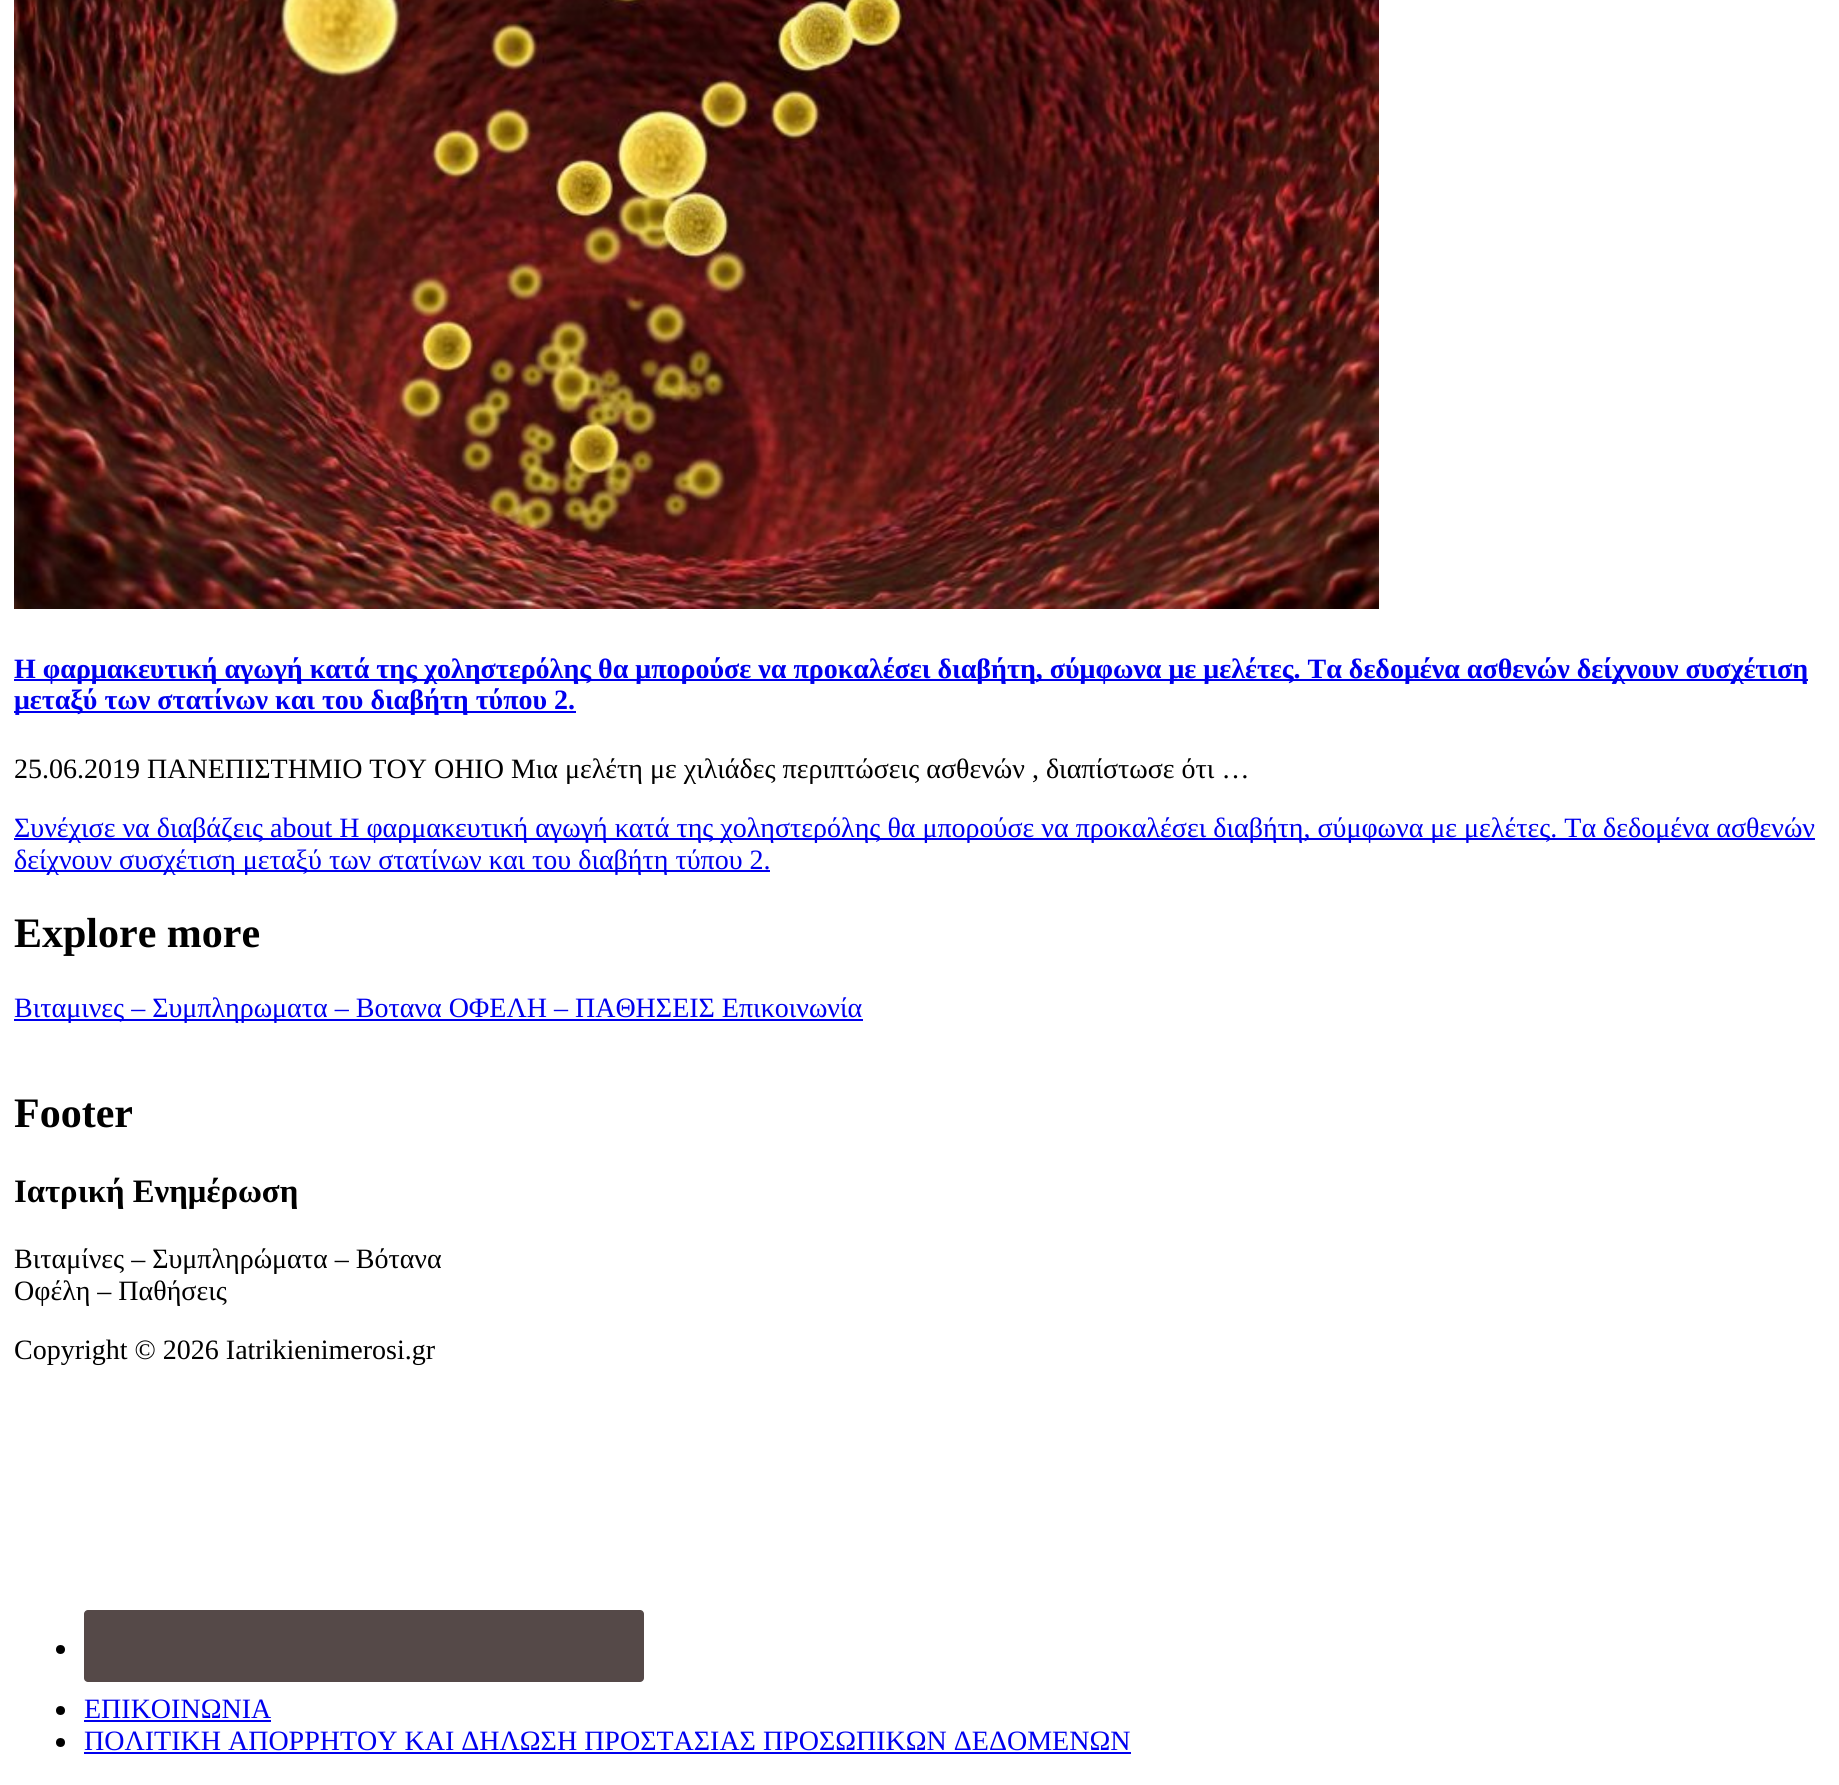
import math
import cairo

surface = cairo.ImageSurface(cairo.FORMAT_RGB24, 1839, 1785)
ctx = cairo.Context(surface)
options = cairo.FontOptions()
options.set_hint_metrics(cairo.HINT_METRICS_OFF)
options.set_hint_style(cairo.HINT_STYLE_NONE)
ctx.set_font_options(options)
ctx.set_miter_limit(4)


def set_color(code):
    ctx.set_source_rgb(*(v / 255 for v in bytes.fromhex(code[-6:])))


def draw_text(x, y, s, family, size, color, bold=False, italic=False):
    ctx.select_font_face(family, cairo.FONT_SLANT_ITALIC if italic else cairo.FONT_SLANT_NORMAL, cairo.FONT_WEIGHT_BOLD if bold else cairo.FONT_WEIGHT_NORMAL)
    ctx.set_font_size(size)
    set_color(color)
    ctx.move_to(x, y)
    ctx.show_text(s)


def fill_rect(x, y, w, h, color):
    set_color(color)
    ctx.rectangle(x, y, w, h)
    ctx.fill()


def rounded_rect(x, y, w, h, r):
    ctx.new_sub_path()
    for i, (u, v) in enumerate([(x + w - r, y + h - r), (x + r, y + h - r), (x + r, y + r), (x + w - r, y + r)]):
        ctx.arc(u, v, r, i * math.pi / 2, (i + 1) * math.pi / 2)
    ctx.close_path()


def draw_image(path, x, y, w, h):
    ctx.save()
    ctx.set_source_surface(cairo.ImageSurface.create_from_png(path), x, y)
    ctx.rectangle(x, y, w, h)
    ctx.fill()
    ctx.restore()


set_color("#ffffff")
ctx.paint()
draw_image("assets/img1.png", 14, 0, 1365, 609)
fill_rect(14, 679, 1794, 2, "#0000ee")
draw_text(14, 678, "Η φαρμακευτική αγωγή κατά της χοληστερόλης θα μπορούσε να προκαλέσει διαβήτη, σύμφωνα με μελέτες. Τα δεδομένα ασθενών δείχνουν συσχέτιση", "Liberation Serif", 28, "#0000ee", bold=True)
fill_rect(14, 711, 562, 2, "#0000ee")
draw_text(14, 709, "μεταξύ των στατίνων και του διαβήτη τύπου 2.", "Liberation Serif", 28, "#0000ee", bold=True)
draw_text(14, 778, "25.06.2019 ΠΑΝΕΠΙΣΤΗΜΙΟ ΤΟΥ OHIO Μια μελέτη με χιλιάδες περιπτώσεις ασθενών , διαπίστωσε ότι …", "Liberation Serif", 28, "#000000")
fill_rect(14, 838, 1801, 2, "#0000ee")
draw_text(14, 837, "Συνέχισε να διαβάζεις about Η φαρμακευτική αγωγή κατά της χοληστερόλης θα μπορούσε να προκαλέσει διαβήτη, σύμφωνα με μελέτες. Τα δεδομένα ασθενών", "Liberation Serif", 28, "#0000ee")
fill_rect(14, 870, 756, 2, "#0000ee")
draw_text(14, 869, "δείχνουν συσχέτιση μεταξύ των στατίνων και του διαβήτη τύπου 2.", "Liberation Serif", 28, "#0000ee")
draw_text(14, 947, "Explore more", "Liberation Serif", 42, "#000000", bold=True)
fill_rect(14, 1019, 849, 2, "#0000ee")
draw_text(14, 1017, "Βιταμινες – Συμπληρωματα – Βοτανα ΟΦΕΛΗ – ΠΑΘΗΣΕΙΣ Επικοινωνία", "Liberation Serif", 28, "#0000ee")
draw_text(14, 1127, "Footer", "Liberation Serif", 42, "#000000", bold=True)
draw_text(14, 1202, "Ιατρική Ενημέρωση", "Liberation Serif", 32.75, "#000000", bold=True)
draw_text(14, 1268, "Βιταμίνες – Συμπληρώματα – Βότανα", "Liberation Serif", 28, "#000000")
draw_text(14, 1300, "Οφέλη – Παθήσεις", "Liberation Serif", 28, "#000000")
draw_text(14, 1359, "Copyright © 2026 Iatrikienimerosi.gr", "Liberation Serif", 28, "#000000")
ctx.new_path()
ctx.arc(60.5, 1649.5, 4.5, 0, 2 * math.pi)
ctx.fill()
set_color("#554948")
rounded_rect(84, 1610, 560, 72, 4)
ctx.fill()
set_color("#000000")
ctx.arc(60.5, 1710.5, 4.5, 0, 2 * math.pi)
ctx.fill()
draw_text(84, 1718, "ΕΠΙΚΟΙΝΩΝΙΑ", "Liberation Serif", 28, "#0000ee")
fill_rect(84, 1720, 187, 2, "#0000ee")
set_color("#000000")
ctx.new_path()
ctx.arc(60.5, 1742.5, 4.5, 0, 2 * math.pi)
ctx.fill()
draw_text(84, 1750, "ΠΟΛΙΤΙΚΗ ΑΠΟΡΡΗΤΟΥ ΚΑΙ ΔΗΛΩΣΗ ΠΡΟΣΤΑΣΙΑΣ ΠΡΟΣΩΠΙΚΩΝ ΔΕΔΟΜΕΝΩΝ", "Liberation Serif", 28, "#0000ee")
fill_rect(84, 1752, 1047, 2, "#0000ee")
surface.write_to_png("output.png")
